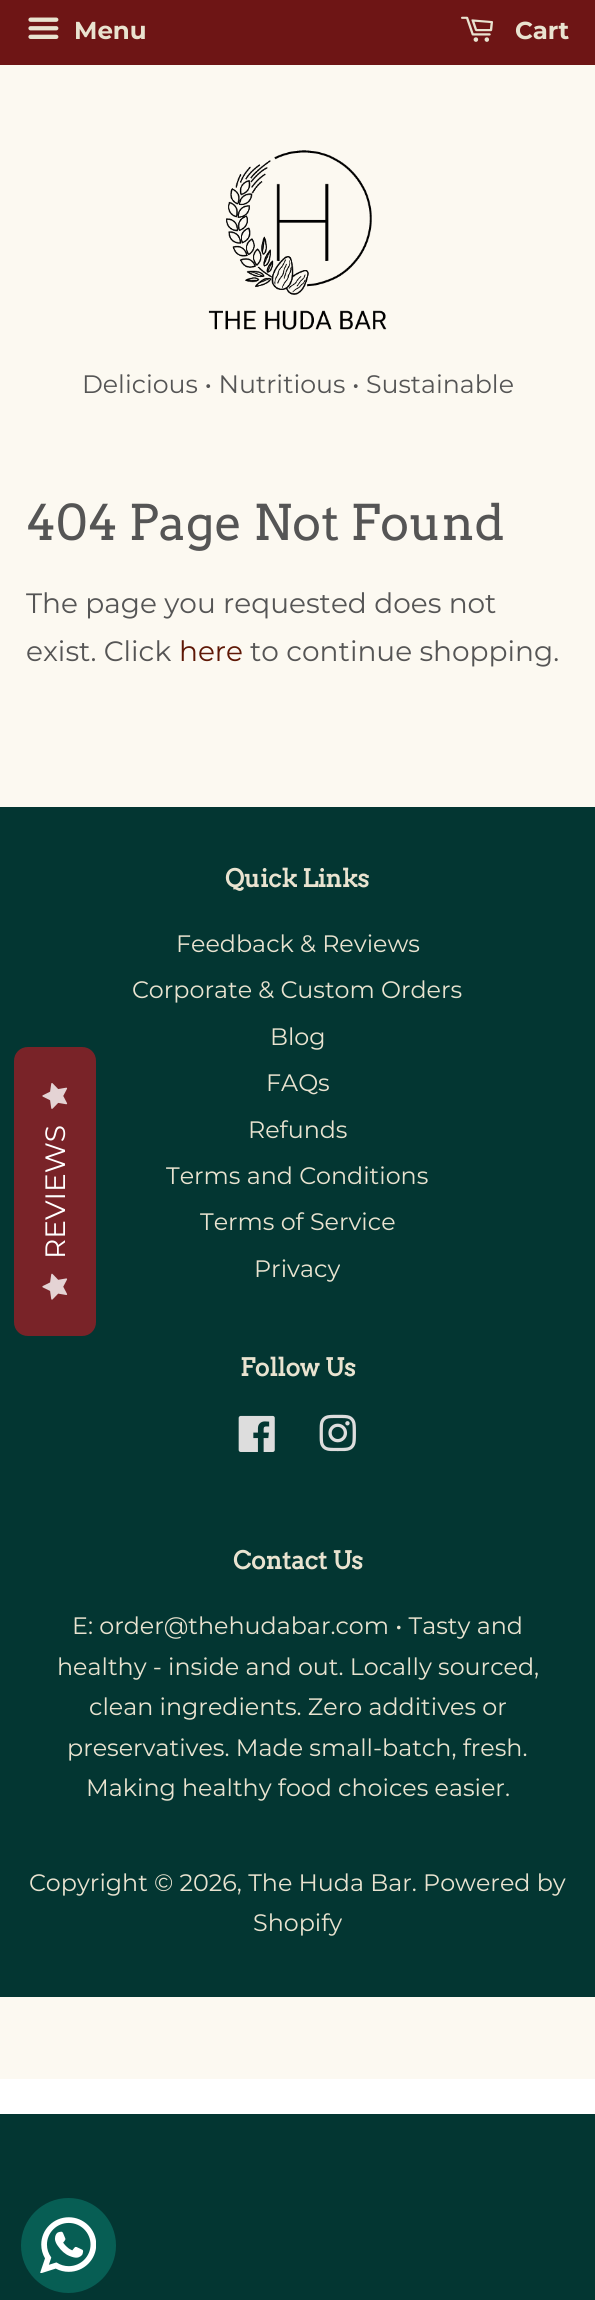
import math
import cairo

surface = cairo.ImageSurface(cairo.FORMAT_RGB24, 595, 2300)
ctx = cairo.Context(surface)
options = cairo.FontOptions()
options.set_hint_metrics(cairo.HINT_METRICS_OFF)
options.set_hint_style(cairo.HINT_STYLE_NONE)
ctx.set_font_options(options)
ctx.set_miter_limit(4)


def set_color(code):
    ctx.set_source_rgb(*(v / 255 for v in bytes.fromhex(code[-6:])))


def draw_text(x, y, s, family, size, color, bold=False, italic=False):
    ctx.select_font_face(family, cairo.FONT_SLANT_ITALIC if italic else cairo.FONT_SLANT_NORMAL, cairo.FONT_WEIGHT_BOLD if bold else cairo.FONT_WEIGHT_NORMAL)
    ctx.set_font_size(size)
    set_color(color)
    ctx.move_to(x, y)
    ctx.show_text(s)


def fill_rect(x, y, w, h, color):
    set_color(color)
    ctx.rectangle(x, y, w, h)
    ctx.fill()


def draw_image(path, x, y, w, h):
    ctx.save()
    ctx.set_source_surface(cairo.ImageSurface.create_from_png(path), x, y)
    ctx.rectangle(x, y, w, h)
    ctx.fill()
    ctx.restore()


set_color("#033632")
ctx.paint()
fill_rect(0, 65, 595, 2014, "#fcf9f1")
fill_rect(0, 0, 595, 65, "#6e1515")
draw_image("assets/img1.png", 28, 17, 31, 22)
draw_text(74, 39, "Menu", "Montserrat", 24.5, "#e9e3d0", bold=True)
draw_image("assets/img2.png", 461, 16, 32, 26)
draw_text(515, 39, "Cart", "Montserrat", 24.5, "#e9e3d0", bold=True)
draw_image("assets/img3.png", 208, 150, 179, 180)
draw_text(82, 393, "Delicious • Nutritious • Sustainable", "Montserrat", 25.25, "#555555")
draw_text(26, 540, "404 Page Not Found", "Arvo", 49, "#555555")
draw_text(26, 613, "The page you requested does not", "Montserrat", 28, "#555555")
draw_text(26, 661, "exist. Click", "Montserrat", 28, "#555555")
draw_text(179, 661, "here", "Montserrat", 28, "#5e1705")
draw_text(250, 661, "to continue shopping.", "Montserrat", 28, "#555555")
fill_rect(0, 807, 595, 1190, "#033632")
draw_text(225, 887, "Quick Links", "Arvo", 24.5, "#e9e3d0", bold=True)
draw_text(176, 952, "Feedback & Reviews", "Montserrat", 23.8, "#e9e3d0")
draw_text(132, 998, "Corporate & Custom Orders", "Montserrat", 23.8, "#e9e3d0")
draw_text(270, 1045, "Blog", "Montserrat", 23.8, "#e9e3d0")
draw_text(266, 1091, "FAQs", "Montserrat", 23.8, "#e9e3d0")
draw_text(248, 1138, "Refunds", "Montserrat", 23.8, "#e9e3d0")
draw_text(166, 1184, "Terms and Conditions", "Montserrat", 23.8, "#e9e3d0")
draw_text(200, 1230, "Terms of Service", "Montserrat", 23.8, "#e9e3d0")
draw_text(254, 1277, "Privacy", "Montserrat", 23.8, "#e9e3d0")
draw_text(240, 1376, "Follow Us", "Arvo", 24.5, "#e9e3d0", bold=True)
draw_image("assets/img4.png", 238, 1415, 37, 37)
draw_image("assets/img5.png", 319, 1414, 37, 38)
draw_text(233, 1569, "Contact Us", "Arvo", 24.5, "#e9e3d0", bold=True)
draw_text(72, 1634, "E: order@thehudabar.com • Tasty and", "Montserrat", 23.8, "#e9e3d0")
draw_text(57, 1675, "healthy - inside and out. Locally sourced,", "Montserrat", 23.8, "#e9e3d0")
draw_text(89, 1715, "clean ingredients. Zero additives or", "Montserrat", 23.8, "#e9e3d0")
draw_text(67, 1756, "preservatives. Made small-batch, fresh.", "Montserrat", 23.8, "#e9e3d0")
draw_text(86, 1796, "Making healthy food choices easier.", "Montserrat", 23.8, "#e9e3d0")
draw_text(29, 1891, "Copyright © 2026, The Huda Bar. Powered by", "Montserrat", 23.8, "#e9e3d0")
draw_text(253, 1931, "Shopify", "Montserrat", 23.8, "#e9e3d0")
fill_rect(0, 2079, 595, 35, "#ffffff")
set_color("#792328")
ctx.new_path()
ctx.move_to(14, 1322)
ctx.line_to(14, 1061)
ctx.curve_to(14, 1053, 20, 1047, 28, 1047)
ctx.line_to(82, 1047)
ctx.curve_to(90, 1047, 96, 1053, 96, 1061)
ctx.line_to(96, 1322)
ctx.curve_to(96, 1330, 90, 1336, 82, 1336)
ctx.line_to(28, 1336)
ctx.curve_to(20, 1336, 14, 1330, 14, 1322)
ctx.close_path()
ctx.fill()
draw_image("assets/img6.png", 42, 1083, 26, 26)
ctx.save()
ctx.translate(65, 1259)
ctx.rotate(-90 * math.pi / 180)
draw_text(0, 0, "REVIEWS", "Montserrat", 28, "#ffffff")
ctx.restore()
draw_image("assets/img7.png", 42, 1273, 26, 27)
set_color("#075e54")
ctx.arc(68.5, 2245.5, 46.5, 0, 2 * math.pi)
ctx.fill_preserve()
ctx.stroke()
draw_image("assets/img8.png", 40, 2217, 56, 56)
surface.write_to_png("output.png")
